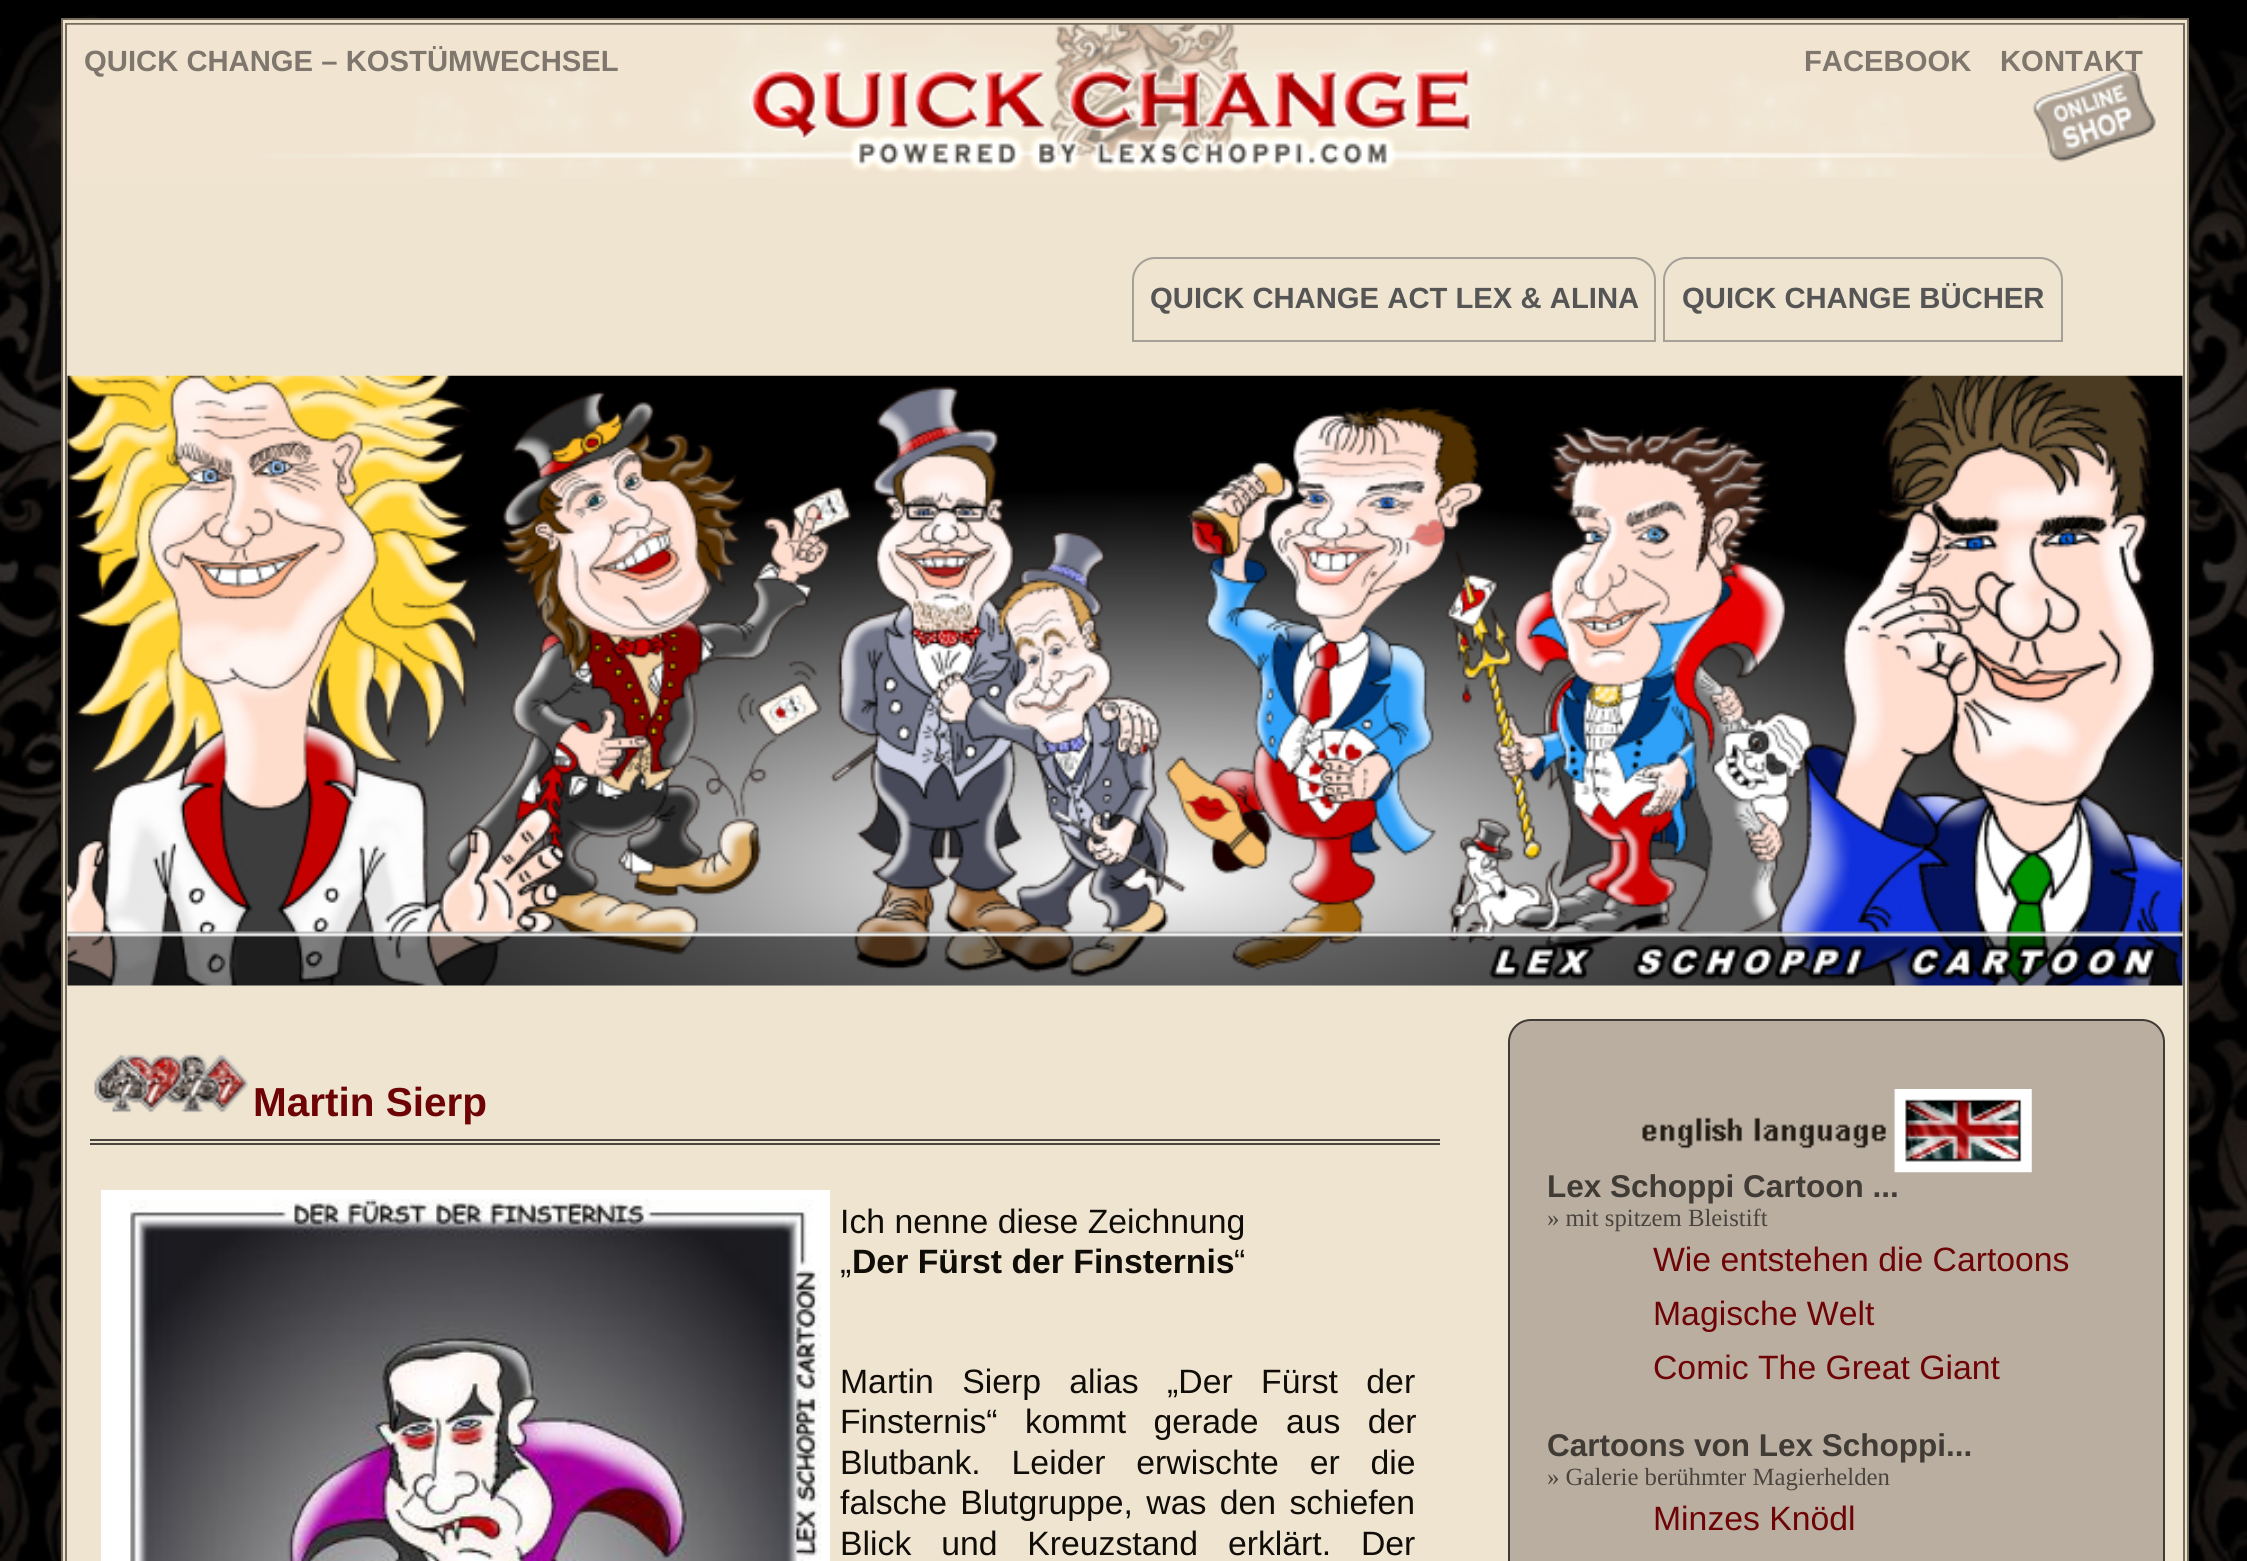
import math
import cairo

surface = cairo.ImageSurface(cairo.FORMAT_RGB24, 2247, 1561)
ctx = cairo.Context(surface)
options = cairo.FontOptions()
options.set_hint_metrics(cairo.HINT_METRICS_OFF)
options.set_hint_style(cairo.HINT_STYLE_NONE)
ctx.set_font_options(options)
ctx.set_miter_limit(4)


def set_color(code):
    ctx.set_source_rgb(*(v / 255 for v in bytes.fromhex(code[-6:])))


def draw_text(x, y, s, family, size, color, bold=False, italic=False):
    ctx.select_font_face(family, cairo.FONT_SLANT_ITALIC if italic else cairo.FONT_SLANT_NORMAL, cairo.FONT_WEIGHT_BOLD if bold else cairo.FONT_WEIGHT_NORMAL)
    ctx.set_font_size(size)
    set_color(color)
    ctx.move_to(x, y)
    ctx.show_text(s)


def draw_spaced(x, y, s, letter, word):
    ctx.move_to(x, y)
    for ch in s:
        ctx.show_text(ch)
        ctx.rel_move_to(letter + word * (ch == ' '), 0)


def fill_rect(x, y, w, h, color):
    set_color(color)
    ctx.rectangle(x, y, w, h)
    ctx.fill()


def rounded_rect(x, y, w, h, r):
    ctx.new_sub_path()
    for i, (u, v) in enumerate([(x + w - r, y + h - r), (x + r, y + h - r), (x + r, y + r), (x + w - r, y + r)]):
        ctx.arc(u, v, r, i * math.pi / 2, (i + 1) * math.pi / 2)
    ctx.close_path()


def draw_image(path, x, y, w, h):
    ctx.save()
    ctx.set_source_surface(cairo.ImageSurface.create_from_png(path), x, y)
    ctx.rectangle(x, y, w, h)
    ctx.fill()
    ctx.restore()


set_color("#000000")
ctx.paint()
draw_image("assets/img1.png", 0, 15, 2247, 1546)
set_color("#efe4d0")
ctx.rectangle(62, 19, 2126, 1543)
ctx.fill_preserve()
set_color("#766c5c")
ctx.stroke()
ctx.rectangle(66, 24, 2118, 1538)
ctx.stroke()
draw_image("assets/img2.png", 67, 24, 2116, 154)
draw_text(84, 71, "QUICK CHANGE – KOSTÜMWECHSEL", "Liberation Sans", 29.25, "#7f776e", bold=True)
draw_text(1804, 71, "FACEBOOK", "Liberation Sans", 29.25, "#7f776e", bold=True)
draw_text(2000, 71, "KONTAKT", "Liberation Sans", 29.25, "#7f776e", bold=True)
ctx.new_path()
ctx.move_to(1155, 258)
ctx.line_to(1633, 258)
ctx.curve_to(1645, 258, 1655, 268, 1655, 280)
ctx.line_to(1655, 341)
ctx.line_to(1133, 341)
ctx.line_to(1133, 280)
ctx.curve_to(1133, 268, 1143, 258, 1155, 258)
ctx.close_path()
set_color("#a49f97")
ctx.stroke()
draw_text(1150, 308, "QUICK CHANGE ACT LEX & ALINA", "Liberation Sans", 29.25, "#555555", bold=True)
ctx.new_path()
ctx.move_to(1686, 258)
ctx.line_to(2040, 258)
ctx.curve_to(2052, 258, 2062, 268, 2062, 280)
ctx.line_to(2062, 341)
ctx.line_to(1664, 341)
ctx.line_to(1664, 280)
ctx.curve_to(1664, 268, 1674, 258, 1686, 258)
ctx.close_path()
set_color("#a49f97")
ctx.stroke()
draw_text(1682, 308, "QUICK CHANGE BÜCHER", "Liberation Sans", 29.25, "#555555", bold=True)
draw_image("assets/img3.png", 67, 375, 2116, 611)
fill_rect(90, 1139, 1350, 2, "#4a443e")
fill_rect(90, 1143, 1350, 2, "#4a443e")
draw_image("assets/img4.png", 94, 1054, 154, 59)
draw_text(253, 1116, "Martin Sierp", "Liberation Sans", 40.5, "#6e0305", bold=True)
fill_rect(101, 1190, 729, 371, "#ffffff")
draw_image("assets/img5.png", 129, 1199, 693, 362)
draw_text(840, 1233, "Ich nenne diese Zeichnung", "Liberation Sans", 33.75, "#100d09")
draw_text(852, 1273, "Der Fürst der Finsternis", "Liberation Sans", 33.75, "#100d09", bold=True)
draw_text(1234, 1273, "“", "Liberation Sans", 33.75, "#100d09")
draw_text(840, 1273, "„", "Liberation Sans", 33.75, "#100d09")
draw_spaced(840, 1393, "Martin Sierp alias „Der Fürst der", 0, 19)
draw_spaced(840, 1433, "Finsternis“ kommt gerade aus der", 0, 18)
draw_spaced(840, 1474, "Blutbank. Leider erwischte er die", 0, 21.5)
draw_spaced(840, 1514, "falsche Blutgruppe, was den schiefen", 0, 4)
draw_spaced(840, 1555, "Blick und Kreuzstand erklärt. Der", 0, 20.5)
set_color("#baaea1")
rounded_rect(1509, 1020, 655, 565, 22)
ctx.fill_preserve()
set_color("#403b35")
ctx.stroke()
draw_image("assets/img6.png", 1642, 1089, 390, 84)
draw_text(1547, 1197, "Lex Schoppi Cartoon ...", "Liberation Sans", 31.5, "#403b35", bold=True)
draw_text(1547, 1226, "» mit spitzem Bleistift", "Liberation Serif", 24.75, "#4a443e")
draw_text(1653, 1271, "Wie entstehen die Cartoons", "Liberation Sans", 33.75, "#6e0305")
draw_text(1653, 1325, "Magische Welt", "Liberation Sans", 33.75, "#6e0305")
draw_text(1653, 1379, "Comic The Great Giant", "Liberation Sans", 33.75, "#6e0305")
draw_text(1547, 1456, "Cartoons von Lex Schoppi...", "Liberation Sans", 31.5, "#403b35", bold=True)
draw_text(1547, 1485, "» Galerie berühmter Magierhelden", "Liberation Serif", 24.75, "#4a443e")
draw_text(1653, 1530, "Minzes Knödl", "Liberation Sans", 33.75, "#6e0305")
surface.write_to_png("output.png")
